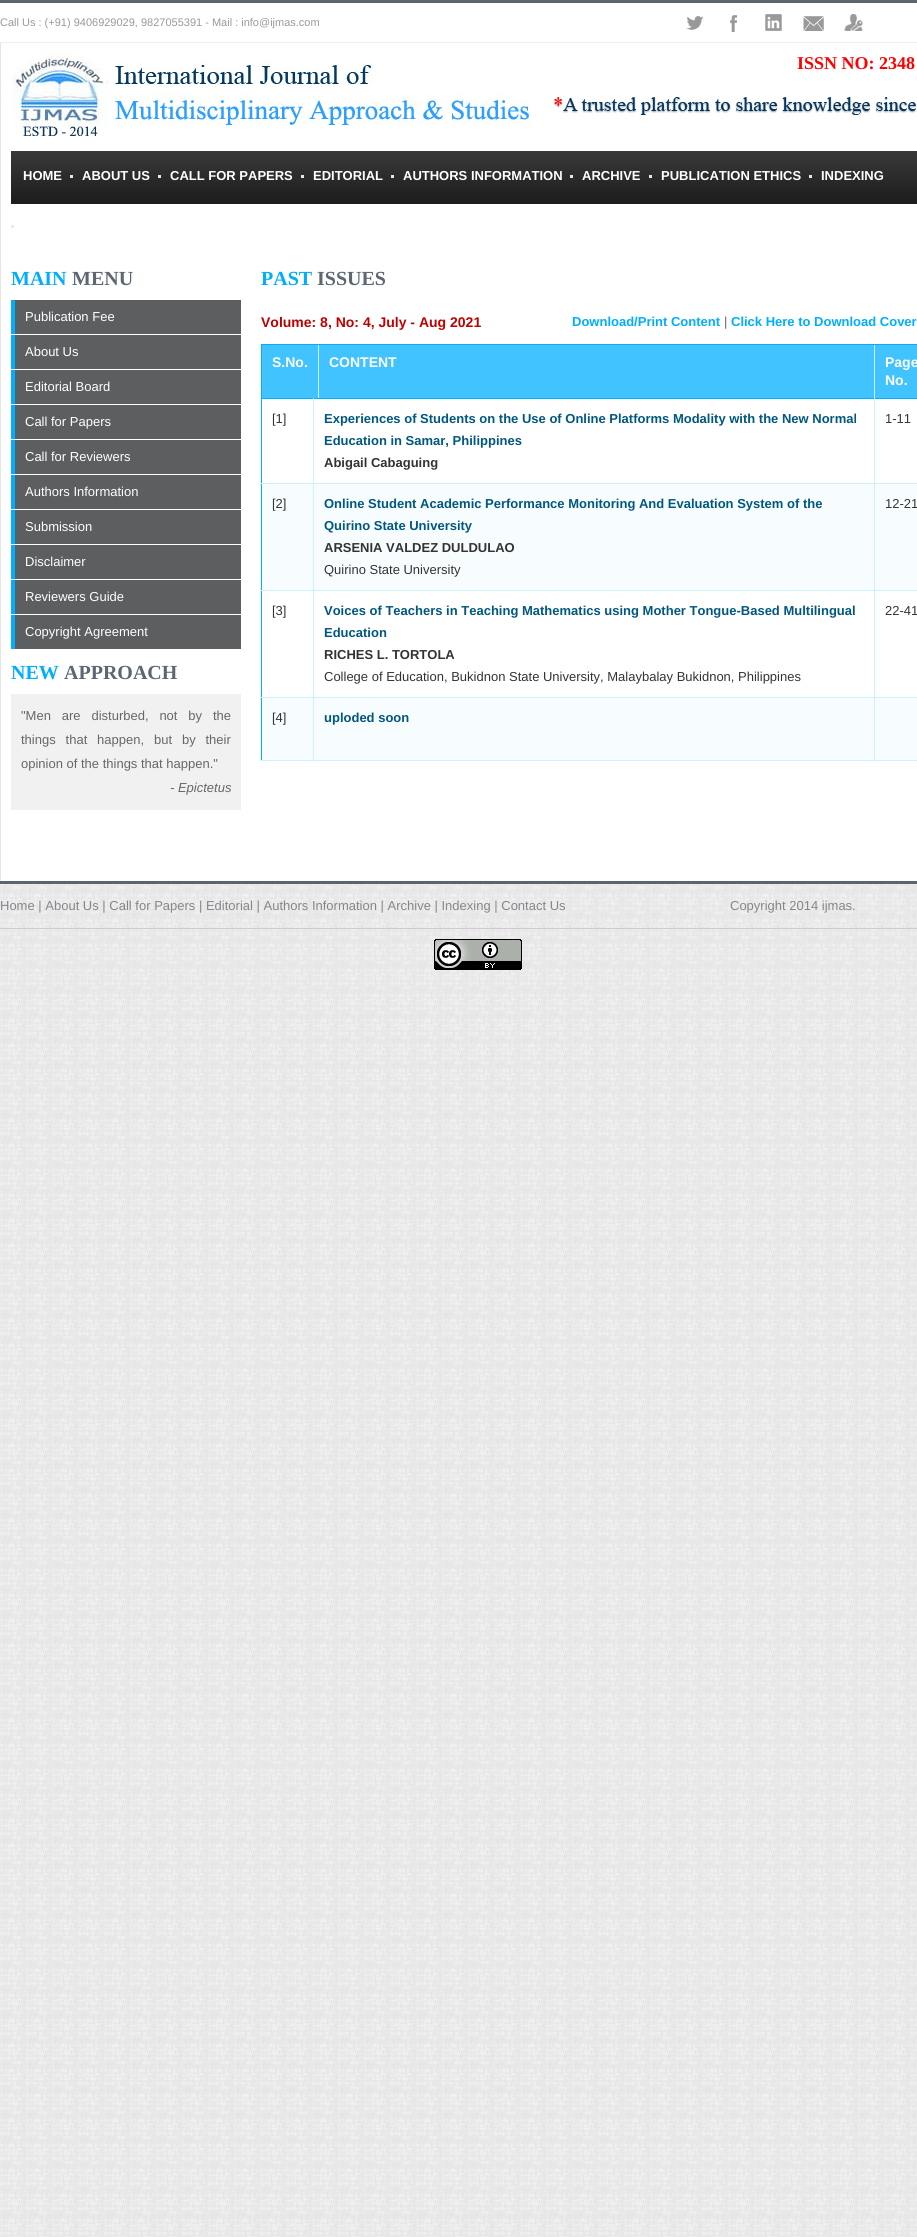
import math
import cairo

surface = cairo.ImageSurface(cairo.FORMAT_RGB24, 917, 2237)
ctx = cairo.Context(surface)
options = cairo.FontOptions()
options.set_hint_metrics(cairo.HINT_METRICS_OFF)
options.set_hint_style(cairo.HINT_STYLE_NONE)
ctx.set_font_options(options)
ctx.set_miter_limit(4)


def set_color(code):
    ctx.set_source_rgb(*(v / 255 for v in bytes.fromhex(code[-6:])))


def draw_text(x, y, s, family, size, color, bold=False, italic=False):
    ctx.select_font_face(family, cairo.FONT_SLANT_ITALIC if italic else cairo.FONT_SLANT_NORMAL, cairo.FONT_WEIGHT_BOLD if bold else cairo.FONT_WEIGHT_NORMAL)
    ctx.set_font_size(size)
    set_color(color)
    ctx.move_to(x, y)
    ctx.show_text(s)


def draw_spaced(x, y, s, letter, word):
    ctx.move_to(x, y)
    for ch in s:
        ctx.show_text(ch)
        ctx.rel_move_to(letter + word * (ch == ' '), 0)


def fill_rect(x, y, w, h, color):
    set_color(color)
    ctx.rectangle(x, y, w, h)
    ctx.fill()


def draw_image(path, x, y, w, h):
    ctx.save()
    ctx.set_source_surface(cairo.ImageSurface.create_from_png(path), x, y)
    ctx.rectangle(x, y, w, h)
    ctx.fill()
    ctx.restore()


set_color("#ffffff")
ctx.paint()
draw_image("assets/img1.png", 0, 884, 917, 1353)
fill_rect(0, 0, 917, 3, "#5b6570")
fill_rect(0, 42, 917, 1, "#efefef")
draw_text(0, 26, "Call Us : (+91) 9406929029, 9827055391 - Mail : info@ijmas.com", "Liberation Sans", 11, "#999999")
draw_image("assets/img2.png", 686, 16, 18, 14)
draw_image("assets/img3.png", 730, 15, 7, 17)
draw_image("assets/img4.png", 765, 14, 17, 17)
draw_image("assets/img5.png", 803, 16, 21, 15)
draw_image("assets/img6.png", 844, 14, 19, 17)
fill_rect(0, 43, 1, 838, "#e5e5e5")
draw_image("assets/img7.png", 12, 53, 519, 83)
draw_text(797, 69, "ISSN NO: 2348", "Liberation Serif", 18, "#ff0000", bold=True)
draw_image("assets/img8.png", 553, 97, 364, 18)
draw_image("assets/img9.png", 11, 151, 906, 53)
draw_text(23, 180, "HOME", "Liberation Sans", 13, "#ffffff", bold=True)
fill_rect(70, 175, 3, 3, "#e9e9e9")
draw_text(82, 180, "ABOUT US", "Liberation Sans", 13, "#ffffff", bold=True)
fill_rect(158, 175, 3, 3, "#e9e9e9")
draw_text(170, 180, "CALL FOR PAPERS", "Liberation Sans", 13, "#ffffff", bold=True)
fill_rect(301, 175, 3, 3, "#e9e9e9")
draw_text(313, 180, "EDITORIAL", "Liberation Sans", 13, "#ffffff", bold=True)
fill_rect(391, 175, 3, 3, "#e9e9e9")
draw_text(403, 180, "AUTHORS INFORMATION", "Liberation Sans", 13, "#ffffff", bold=True)
fill_rect(570, 175, 3, 3, "#e9e9e9")
draw_text(582, 180, "ARCHIVE", "Liberation Sans", 13, "#ffffff", bold=True)
fill_rect(649, 175, 3, 3, "#e9e9e9")
draw_text(661, 180, "PUBLICATION ETHICS", "Liberation Sans", 13, "#ffffff", bold=True)
fill_rect(809, 175, 3, 3, "#e9e9e9")
draw_text(821, 180, "INDEXING", "Liberation Sans", 13, "#ffffff", bold=True)
fill_rect(11, 225, 3, 3, "#e9e9e9")
draw_text(11, 285, "MAIN", "Liberation Serif", 20, "#00aeff", bold=True)
draw_text(72, 285, "MENU", "Liberation Serif", 20, "#5d6773", bold=True)
fill_rect(15, 300, 226, 34, "#5d5e60")
fill_rect(11, 300, 4, 34, "#00aeff")
draw_text(25, 321, "Publication Fee", "Liberation Sans", 13, "#ffffff")
fill_rect(15, 335, 226, 34, "#5d5e60")
fill_rect(11, 335, 4, 34, "#00aeff")
draw_text(25, 356, "About Us", "Liberation Sans", 13, "#ffffff")
fill_rect(15, 370, 226, 34, "#5d5e60")
fill_rect(11, 370, 4, 34, "#00aeff")
draw_text(25, 391, "Editorial Board", "Liberation Sans", 13, "#ffffff")
fill_rect(15, 405, 226, 34, "#5d5e60")
fill_rect(11, 405, 4, 34, "#00aeff")
draw_text(25, 426, "Call for Papers", "Liberation Sans", 13, "#ffffff")
fill_rect(15, 440, 226, 34, "#5d5e60")
fill_rect(11, 440, 4, 34, "#00aeff")
draw_text(25, 461, "Call for Reviewers", "Liberation Sans", 13, "#ffffff")
fill_rect(15, 475, 226, 34, "#5d5e60")
fill_rect(11, 475, 4, 34, "#00aeff")
draw_text(25, 496, "Authors Information", "Liberation Sans", 13, "#ffffff")
fill_rect(15, 510, 226, 34, "#5d5e60")
fill_rect(11, 510, 4, 34, "#00aeff")
draw_text(25, 531, "Submission", "Liberation Sans", 13, "#ffffff")
fill_rect(15, 545, 226, 34, "#5d5e60")
fill_rect(11, 545, 4, 34, "#00aeff")
draw_text(25, 566, "Disclaimer", "Liberation Sans", 13, "#ffffff")
fill_rect(15, 580, 226, 34, "#5d5e60")
fill_rect(11, 580, 4, 34, "#00aeff")
draw_text(25, 601, "Reviewers Guide", "Liberation Sans", 13, "#ffffff")
fill_rect(15, 615, 226, 34, "#5d5e60")
fill_rect(11, 615, 4, 34, "#00aeff")
draw_text(25, 636, "Copyright Agreement", "Liberation Sans", 13, "#ffffff")
draw_text(11, 679, "NEW", "Liberation Serif", 20, "#00aeff", bold=True)
draw_text(64, 679, "APPROACH", "Liberation Serif", 20, "#5d6773", bold=True)
fill_rect(11, 694, 230, 116, "#f1f1f1")
ctx.select_font_face("Liberation Sans")
ctx.set_font_size(13)
set_color("#676767")
draw_spaced(21, 720, "\"Men are disturbed, not by the", 0, 7.25)
draw_spaced(21, 744, "things that happen, but by their", 0, 6.25)
draw_text(21, 768, "opinion of the things that happen.\"", "Liberation Sans", 13, "#676767")
draw_text(170, 792, "- Epictetus", "Liberation Sans", 13, "#676767", italic=True)
draw_text(261, 285, "PAST", "Liberation Serif", 20, "#00aeff", bold=True)
draw_text(317, 285, "ISSUES", "Liberation Serif", 20, "#5d6773", bold=True)
draw_text(261, 327, "Volume: 8, No: 4, July - Aug 2021", "Liberation Sans", 14, "#bf0000", bold=True)
draw_text(572, 326, "Download/Print Content", "Liberation Sans", 13, "#00aeff", bold=True)
draw_text(724, 326, "|", "Liberation Sans", 13, "#676767")
draw_text(731, 326, "Click Here to Download Cover", "Liberation Sans", 13, "#00aeff", bold=True)
fill_rect(261, 344, 656, 1, "#00aeff")
fill_rect(261, 344, 1, 54, "#00aeff")
fill_rect(262, 345, 56, 53, "#41c3ff")
fill_rect(318, 345, 1, 53, "#ceefff")
draw_text(272, 367, "S.No.", "Liberation Sans", 14, "#ffffff", bold=True)
fill_rect(319, 345, 555, 53, "#41c3ff")
fill_rect(874, 345, 1, 53, "#ceefff")
draw_text(329, 367, "CONTENT", "Liberation Sans", 14, "#ffffff", bold=True)
fill_rect(875, 345, 42, 53, "#41c3ff")
draw_text(885, 367, "Page", "Liberation Sans", 14, "#ffffff", bold=True)
draw_text(885, 385, "No.", "Liberation Sans", 14, "#ffffff", bold=True)
fill_rect(261, 398, 656, 1, "#00aeff")
fill_rect(261, 398, 1, 363, "#00aeff")
fill_rect(262, 484, 655, 106, "#f7fdff")
fill_rect(262, 698, 655, 62, "#f7fdff")
fill_rect(874, 760, 43, 1, "#ceefff")
fill_rect(874, 697, 1, 64, "#ceefff")
fill_rect(874, 697, 43, 1, "#ceefff")
fill_rect(874, 590, 1, 108, "#ceefff")
fill_rect(874, 590, 43, 1, "#ceefff")
fill_rect(874, 483, 1, 108, "#ceefff")
fill_rect(874, 483, 43, 1, "#ceefff")
fill_rect(874, 398, 1, 86, "#ceefff")
fill_rect(313, 760, 562, 1, "#ceefff")
fill_rect(313, 697, 1, 64, "#ceefff")
fill_rect(313, 697, 562, 1, "#ceefff")
fill_rect(313, 590, 1, 108, "#ceefff")
fill_rect(313, 590, 562, 1, "#ceefff")
fill_rect(313, 483, 1, 108, "#ceefff")
fill_rect(313, 483, 562, 1, "#ceefff")
fill_rect(313, 398, 1, 86, "#ceefff")
fill_rect(261, 483, 53, 1, "#ceefff")
draw_text(272, 423, "[1]", "Liberation Sans", 13, "#333333")
draw_text(324, 423, "Experiences of Students on the Use of Online Platforms Modality with the New Normal", "Liberation Sans", 13, "#00577f", bold=True)
draw_text(324, 445, "Education in Samar, Philippines", "Liberation Sans", 13, "#00577f", bold=True)
draw_text(324, 467, "Abigail Cabaguing", "Liberation Sans", 13, "#333333", bold=True)
draw_text(885, 423, "1-11", "Liberation Sans", 13, "#333333")
fill_rect(261, 590, 53, 1, "#ceefff")
draw_text(272, 508, "[2]", "Liberation Sans", 13, "#333333")
draw_text(324, 508, "Online Student Academic Performance Monitoring And Evaluation System of the", "Liberation Sans", 13, "#00577f", bold=True)
draw_text(324, 530, "Quirino State University", "Liberation Sans", 13, "#00577f", bold=True)
draw_text(324, 552, "ARSENIA VALDEZ DULDULAO", "Liberation Sans", 13, "#333333", bold=True)
draw_text(324, 574, "Quirino State University", "Liberation Sans", 13, "#333333")
draw_text(885, 508, "12-21", "Liberation Sans", 13, "#333333")
fill_rect(261, 697, 53, 1, "#ceefff")
draw_text(272, 615, "[3]", "Liberation Sans", 13, "#333333")
draw_text(324, 615, "Voices of Teachers in Teaching Mathematics using Mother Tongue-Based Multilingual", "Liberation Sans", 13, "#00577f", bold=True)
draw_text(324, 637, "Education", "Liberation Sans", 13, "#00577f", bold=True)
draw_text(324, 659, "RICHES L. TORTOLA", "Liberation Sans", 13, "#333333", bold=True)
draw_text(324, 681, "College of Education, Bukidnon State University, Malaybalay Bukidnon, Philippines", "Liberation Sans", 13, "#333333")
draw_text(885, 615, "22-41", "Liberation Sans", 13, "#333333")
fill_rect(261, 760, 53, 1, "#ceefff")
draw_text(272, 722, "[4]", "Liberation Sans", 13, "#333333")
draw_text(324, 722, "uploded soon", "Liberation Sans", 13, "#00577f", bold=True)
fill_rect(0, 881, 917, 3, "#5b6570")
draw_text(0, 910, "Home | About Us | Call for Papers | Editorial | Authors Information | Archive | Indexing | Contact Us", "Liberation Sans", 13, "#83868a")
draw_text(730, 910, "Copyright 2014 ijmas.", "Liberation Sans", 13, "#83868a")
fill_rect(0, 928, 917, 1, "#cccccc")
draw_image("assets/img10.png", 434, 939, 88, 31)
surface.write_to_png("output.png")
